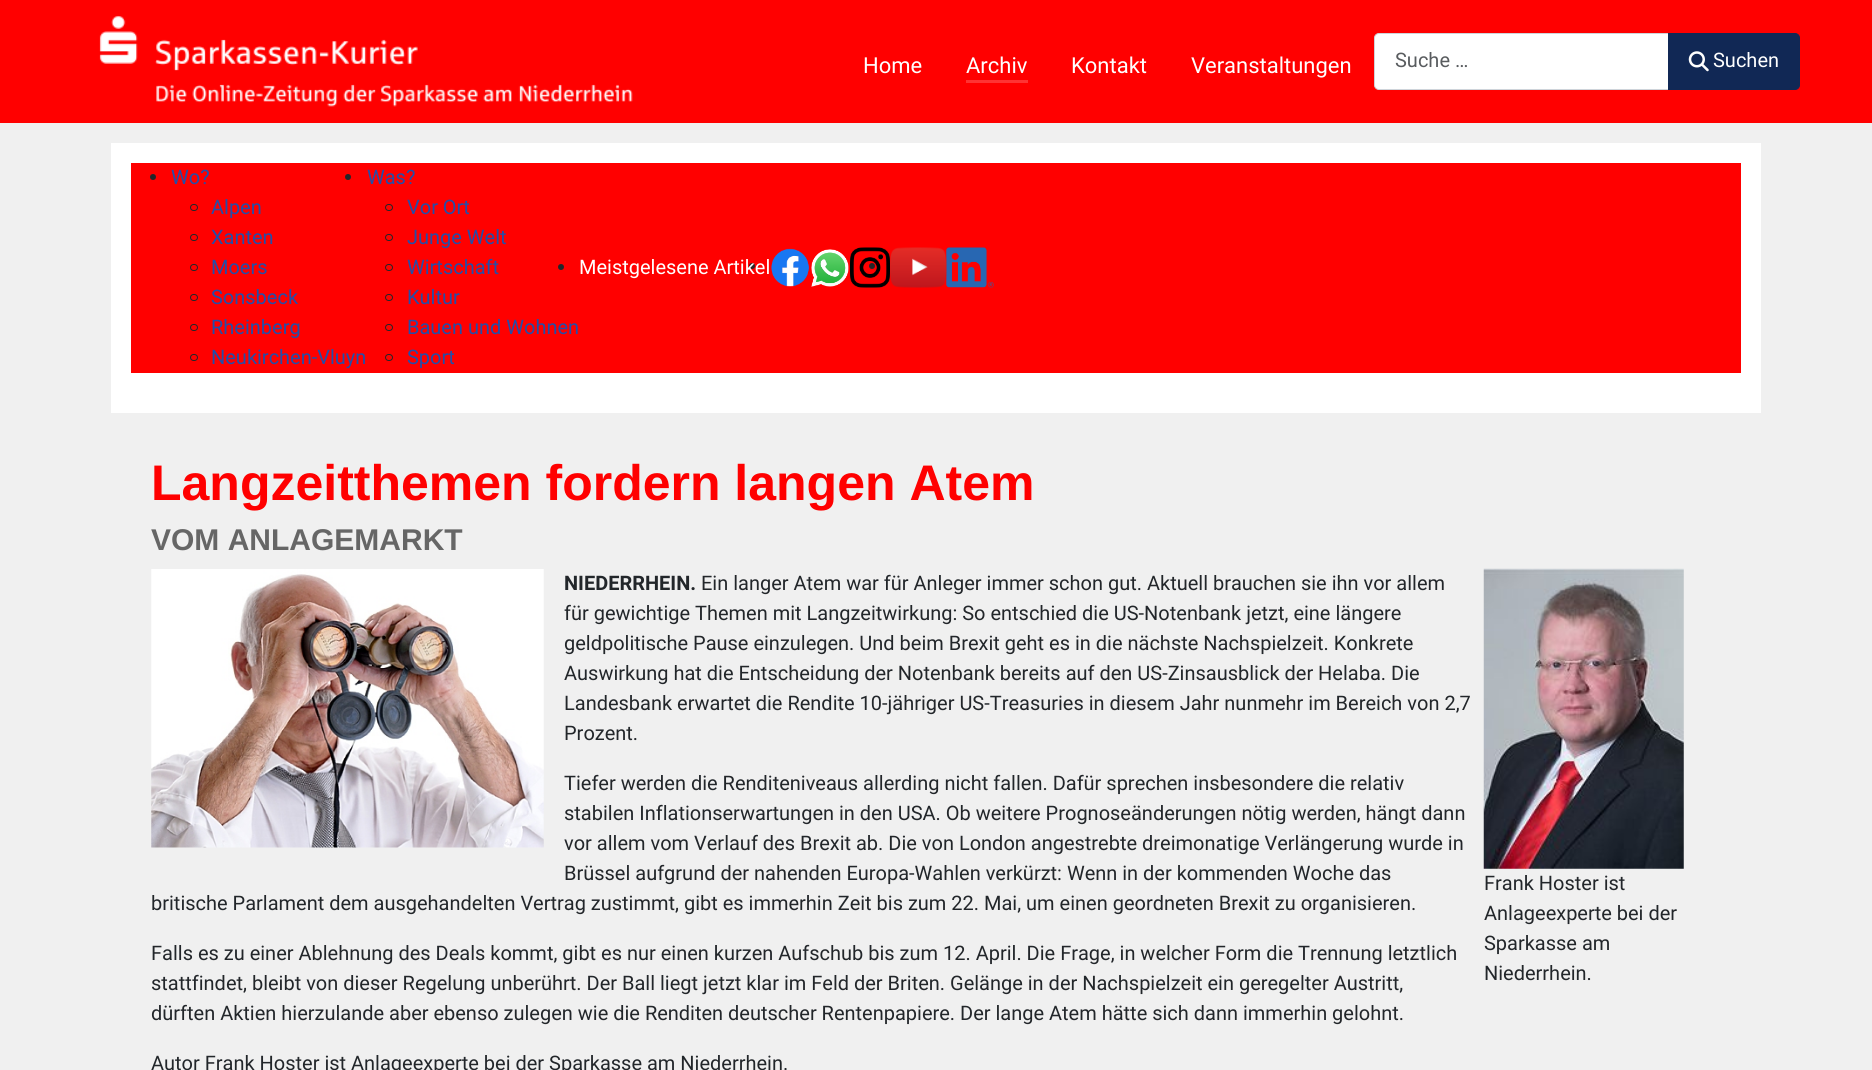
import math
import cairo

surface = cairo.ImageSurface(cairo.FORMAT_RGB24, 1872, 1070)
ctx = cairo.Context(surface)
options = cairo.FontOptions()
options.set_hint_metrics(cairo.HINT_METRICS_OFF)
options.set_hint_style(cairo.HINT_STYLE_NONE)
ctx.set_font_options(options)
ctx.set_miter_limit(4)


def set_color(code):
    ctx.set_source_rgb(*(v / 255 for v in bytes.fromhex(code[-6:])))


def draw_text(x, y, s, family, size, color, bold=False, italic=False):
    ctx.select_font_face(family, cairo.FONT_SLANT_ITALIC if italic else cairo.FONT_SLANT_NORMAL, cairo.FONT_WEIGHT_BOLD if bold else cairo.FONT_WEIGHT_NORMAL)
    ctx.set_font_size(size)
    set_color(color)
    ctx.move_to(x, y)
    ctx.show_text(s)


def fill_rect(x, y, w, h, color):
    set_color(color)
    ctx.rectangle(x, y, w, h)
    ctx.fill()


def rounded_rect(x, y, w, h, r):
    ctx.new_sub_path()
    for i, (u, v) in enumerate([(x + w - r, y + h - r), (x + r, y + h - r), (x + r, y + r), (x + w - r, y + r)]):
        ctx.arc(u, v, r, i * math.pi / 2, (i + 1) * math.pi / 2)
    ctx.close_path()


def draw_image(path, x, y, w, h):
    ctx.save()
    ctx.set_source_surface(cairo.ImageSurface.create_from_png(path), x, y)
    ctx.rectangle(x, y, w, h)
    ctx.fill()
    ctx.restore()


set_color("#f0f0f0")
ctx.paint()
fill_rect(0, 0, 1872, 123, "#ff0000")
draw_image("assets/img1.png", 99, 15, 534, 92)
draw_text(863, 73, "Home", "Roboto", 22, "#ffffff")
draw_text(966, 73, "Archiv", "Roboto", 22, "#ffffff")
fill_rect(966, 80, 62, 3, "#ff3333")
draw_text(1071, 73, "Kontakt", "Roboto", 22, "#ffffff")
draw_text(1191, 73, "Veranstaltungen", "Roboto", 22, "#ffffff")
ctx.new_path()
ctx.move_to(1379, 33.5)
ctx.line_to(1668.5, 33.5)
ctx.line_to(1668.5, 89.5)
ctx.line_to(1379, 89.5)
ctx.curve_to(1376.5, 89.5, 1374.5, 87.5, 1374.5, 85)
ctx.line_to(1374.5, 38)
ctx.curve_to(1374.5, 35.5, 1376.5, 33.5, 1379, 33.5)
ctx.close_path()
ctx.fill_preserve()
set_color("#ced4da")
ctx.set_line_width(1)
ctx.stroke()
draw_text(1395, 67, "Suche …", "Roboto", 20, "#595c5f")
set_color("#112855")
ctx.new_path()
ctx.move_to(1668.5, 33.5)
ctx.line_to(1795, 33.5)
ctx.curve_to(1797.5, 33.5, 1799.5, 35.5, 1799.5, 38)
ctx.line_to(1799.5, 85)
ctx.curve_to(1799.5, 87.5, 1797.5, 89.5, 1795, 89.5)
ctx.line_to(1668.5, 89.5)
ctx.close_path()
ctx.fill_preserve()
ctx.stroke()
draw_image("assets/img2.png", 1688, 51, 21, 21)
draw_text(1713, 67, "Suchen", "Roboto", 20, "#ffffff")
fill_rect(111, 143, 1650, 270, "#ffffff")
fill_rect(131, 163, 1610, 210, "#ff0000")
set_color("#22262a")
ctx.new_path()
ctx.arc(153, 177, 3, 0, 2 * math.pi)
ctx.fill()
draw_text(171, 184, "Wo?", "Roboto", 20, "#224faa")
rounded_rect(190.5, 204.5, 7, 6, 3)
set_color("#22262a")
ctx.stroke()
draw_text(211, 214, "Alpen", "Roboto", 20, "#224faa")
rounded_rect(190.5, 234.5, 7, 6, 3)
set_color("#22262a")
ctx.stroke()
draw_text(211, 244, "Xanten", "Roboto", 20, "#224faa")
rounded_rect(190.5, 264.5, 7, 6, 3)
set_color("#22262a")
ctx.stroke()
draw_text(211, 274, "Moers", "Roboto", 20, "#224faa")
rounded_rect(190.5, 294.5, 7, 6, 3)
set_color("#22262a")
ctx.stroke()
draw_text(211, 304, "Sonsbeck", "Roboto", 20, "#224faa")
rounded_rect(190.5, 324.5, 7, 6, 3)
set_color("#22262a")
ctx.stroke()
draw_text(211, 334, "Rheinberg", "Roboto", 20, "#224faa")
rounded_rect(190.5, 354.5, 7, 6, 3)
set_color("#22262a")
ctx.stroke()
draw_text(211, 364, "Neukirchen-Vluyn", "Roboto", 20, "#224faa")
set_color("#22262a")
ctx.new_path()
ctx.arc(348, 177, 3, 0, 2 * math.pi)
ctx.fill()
draw_text(367, 184, "Was?", "Roboto", 20, "#224faa")
rounded_rect(385.5, 204.5, 7, 6, 3)
set_color("#22262a")
ctx.stroke()
draw_text(407, 214, "Vor Ort", "Roboto", 20, "#224faa")
rounded_rect(385.5, 234.5, 7, 6, 3)
set_color("#22262a")
ctx.stroke()
draw_text(407, 244, "Junge Welt", "Roboto", 20, "#224faa")
rounded_rect(385.5, 264.5, 7, 6, 3)
set_color("#22262a")
ctx.stroke()
draw_text(407, 274, "Wirtschaft", "Roboto", 20, "#224faa")
rounded_rect(385.5, 294.5, 7, 6, 3)
set_color("#22262a")
ctx.stroke()
draw_text(407, 304, "Kultur", "Roboto", 20, "#224faa")
rounded_rect(385.5, 324.5, 7, 6, 3)
set_color("#22262a")
ctx.stroke()
draw_text(407, 334, "Bauen und Wohnen", "Roboto", 20, "#224faa")
rounded_rect(385.5, 354.5, 7, 6, 3)
set_color("#22262a")
ctx.stroke()
draw_text(407, 364, "Sport", "Roboto", 20, "#224faa")
set_color("#22262a")
ctx.new_path()
ctx.arc(872, 266, 3, 0, 2 * math.pi)
ctx.fill()
draw_image("assets/img3.png", 850, 247, 40, 41)
ctx.arc(561, 267, 3, 0, 2 * math.pi)
ctx.fill()
ctx.arc(752, 266, 3, 0, 2 * math.pi)
ctx.fill()
draw_text(579, 274, "Meistgelesene Artikel", "Roboto", 20, "#ffffff")
draw_image("assets/img4.png", 771, 248, 38, 39)
draw_image("assets/img5.png", 811, 249, 38, 38)
draw_image("assets/img7.png", 946, 247, 48, 41)
draw_image("assets/img6.png", 890, 247, 57, 41)
draw_text(151, 500, "Langzeitthemen fordern langen Atem", "Liberation Sans", 50, "#ff0000", bold=True)
draw_text(151, 550, "VOM ANLAGEMARKT", "Liberation Sans", 30, "#666666", bold=True)
draw_image("assets/img8.png", 151, 569, 393, 279)
draw_text(564, 590, "NIEDERRHEIN.", "Roboto", 20, "#22262a", bold=True)
draw_text(701, 590, "Ein langer Atem war für Anleger immer schon gut. Aktuell brauchen sie ihn vor allem", "Roboto", 20, "#22262a")
draw_text(564, 620, "für gewichtige Themen mit Langzeitwirkung: So entschied die US-Notenbank jetzt, eine längere", "Roboto", 20, "#22262a")
draw_text(564, 650, "geldpolitische Pause einzulegen. Und beim Brexit geht es in die nächste Nachspielzeit. Konkrete", "Roboto", 20, "#22262a")
draw_text(564, 680, "Auswirkung hat die Entscheidung der Notenbank bereits auf den US-Zinsausblick der Helaba. Die", "Roboto", 20, "#22262a")
draw_text(564, 710, "Landesbank erwartet die Rendite 10-jähriger US-Treasuries in diesem Jahr nunmehr im Bereich von 2,7", "Roboto", 20, "#22262a")
draw_text(564, 740, "Prozent.", "Roboto", 20, "#22262a")
draw_text(564, 790, "Tiefer werden die Renditeniveaus allerding nicht fallen. Dafür sprechen insbesondere die relativ", "Roboto", 20, "#22262a")
draw_text(564, 820, "stabilen Inflationserwartungen in den USA. Ob weitere Prognoseänderungen nötig werden, hängt dann", "Roboto", 20, "#22262a")
draw_text(564, 850, "vor allem vom Verlauf des Brexit ab. Die von London angestrebte dreimonatige Verlängerung wurde in", "Roboto", 20, "#22262a")
draw_text(564, 880, "Brüssel aufgrund der nahenden Europa-Wahlen verkürzt: Wenn in der kommenden Woche das", "Roboto", 20, "#22262a")
draw_text(151, 910, "britische Parlament dem ausgehandelten Vertrag zustimmt, gibt es immerhin Zeit bis zum 22. Mai, um einen geordneten Brexit zu organisieren.", "Roboto", 20, "#22262a")
draw_text(151, 960, "Falls es zu einer Ablehnung des Deals kommt, gibt es nur einen kurzen Aufschub bis zum 12. April. Die Frage, in welcher Form die Trennung letztlich", "Roboto", 20, "#22262a")
draw_text(151, 990, "stattfindet, bleibt von dieser Regelung unberührt. Der Ball liegt jetzt klar im Feld der Briten. Gelänge in der Nachspielzeit ein geregelter Austritt,", "Roboto", 20, "#22262a")
draw_text(151, 1020, "dürften Aktien hierzulande aber ebenso zulegen wie die Renditen deutscher Rentenpapiere. Der lange Atem hätte sich dann immerhin gelohnt.", "Roboto", 20, "#22262a")
draw_image("assets/img9.png", 1483, 568, 201, 301)
draw_text(1484, 890, "Frank Hoster ist", "Roboto", 20, "#22262a")
draw_text(1484, 920, "Anlageexperte bei der", "Roboto", 20, "#22262a")
draw_text(1484, 950, "Sparkasse am", "Roboto", 20, "#22262a")
draw_text(1484, 980, "Niederrhein.", "Roboto", 20, "#22262a")
draw_text(151, 1070, "Autor Frank Hoster ist Anlageexperte bei der Sparkasse am Niederrhein.", "Roboto", 20, "#22262a")
surface.write_to_png("output.png")
